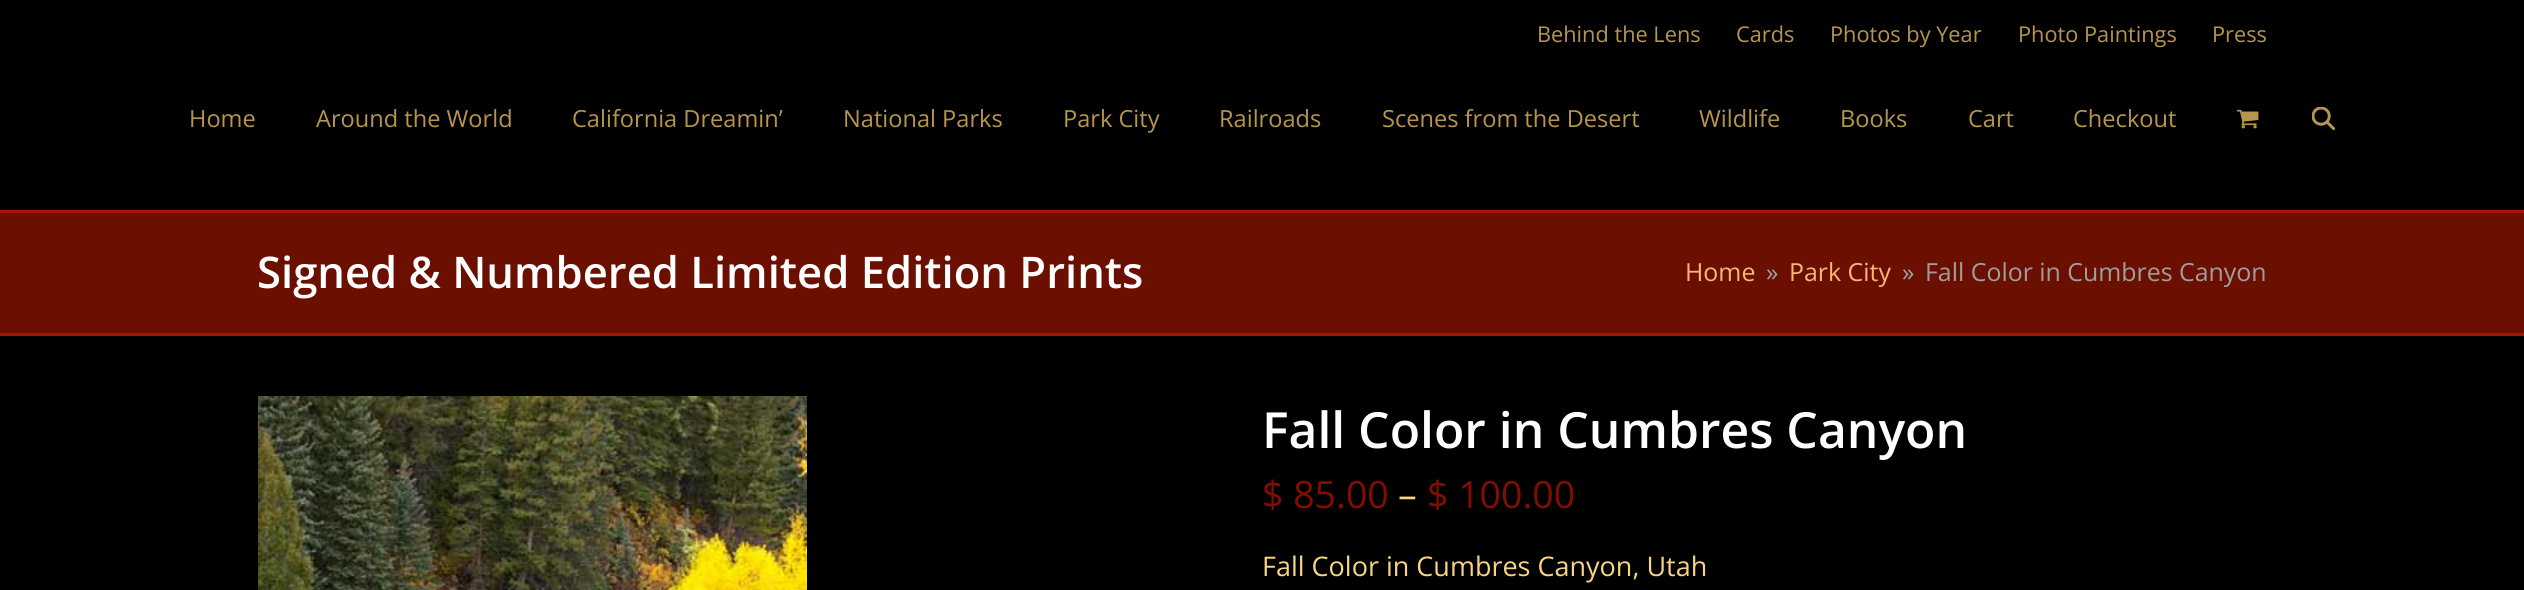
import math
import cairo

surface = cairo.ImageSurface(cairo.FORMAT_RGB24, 2524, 590)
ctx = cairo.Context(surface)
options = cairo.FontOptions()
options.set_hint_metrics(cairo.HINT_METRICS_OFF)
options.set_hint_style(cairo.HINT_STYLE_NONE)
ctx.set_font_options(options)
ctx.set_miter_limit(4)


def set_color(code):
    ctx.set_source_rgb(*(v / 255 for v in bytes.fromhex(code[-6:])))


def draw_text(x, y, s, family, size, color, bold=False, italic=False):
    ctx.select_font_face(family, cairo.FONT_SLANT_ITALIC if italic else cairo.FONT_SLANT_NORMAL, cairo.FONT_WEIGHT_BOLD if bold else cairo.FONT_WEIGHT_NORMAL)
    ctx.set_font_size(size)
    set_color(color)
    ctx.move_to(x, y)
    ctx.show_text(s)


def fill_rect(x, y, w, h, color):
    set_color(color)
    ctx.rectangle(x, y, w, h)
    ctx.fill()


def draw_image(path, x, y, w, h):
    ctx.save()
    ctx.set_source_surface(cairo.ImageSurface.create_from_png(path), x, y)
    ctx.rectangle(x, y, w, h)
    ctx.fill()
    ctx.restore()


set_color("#000000")
ctx.paint()
draw_text(1537, 42, "Behind the Lens", "Open Sans", 21.75, "#b7954e")
draw_text(1736, 42, "Cards", "Open Sans", 21.75, "#b7954e")
draw_text(1830, 42, "Photos by Year", "Open Sans", 21.75, "#b7954e")
draw_text(2018, 42, "Photo Paintings", "Open Sans", 21.75, "#b7954e")
draw_text(2212, 42, "Press", "Open Sans", 21.75, "#b7954e")
draw_text(189, 127, "Home", "Open Sans", 23.6, "#b7954e")
draw_text(316, 127, "Around the World", "Open Sans", 23.6, "#b7954e")
draw_text(572, 127, "California Dreamin’", "Open Sans", 23.6, "#b7954e")
draw_text(843, 127, "National Parks", "Open Sans", 23.6, "#b7954e")
draw_text(1063, 127, "Park City", "Open Sans", 23.6, "#b7954e")
draw_text(1219, 127, "Railroads", "Open Sans", 23.6, "#b7954e")
draw_text(1382, 127, "Scenes from the Desert", "Open Sans", 23.6, "#b7954e")
draw_text(1699, 127, "Wildlife", "Open Sans", 23.6, "#b7954e")
draw_text(1840, 127, "Books", "Open Sans", 23.6, "#b7954e")
draw_text(1968, 127, "Cart", "Open Sans", 23.6, "#b7954e")
draw_text(2073, 127, "Checkout", "Open Sans", 23.6, "#b7954e")
draw_image("assets/img1.png", 2237, 109, 22, 20)
draw_image("assets/img2.png", 2312, 107, 24, 24)
fill_rect(0, 213, 2524, 120, "#6b0f00")
fill_rect(0, 210, 2524, 3, "#ab1300")
fill_rect(0, 333, 2524, 3, "#ab1300")
draw_text(257, 288, "Signed & Numbered Limited Edition Prints", "Open Sans SemiBold", 43.6, "#ffffff")
draw_text(1685, 281, "Home", "Open Sans", 24.9, "#f8b775")
draw_text(1766, 281, "»", "Open Sans", 24.9, "#9e9e9e")
draw_text(1789, 281, "Park City", "Open Sans", 24.9, "#f8b775")
draw_text(1902, 281, "»", "Open Sans", 24.9, "#9e9e9e")
draw_text(1925, 281, "Fall Color in Cumbres Canyon", "Open Sans", 24.9, "#9e9e9e")
draw_image("assets/img3.png", 258, 396, 549, 194)
draw_text(1262, 448, "Fall Color in Cumbres Canyon", "Open Sans SemiBold", 49.8, "#ffffff")
draw_text(1262, 508, "$ 85.00", "Open Sans", 37.5, "#810e00")
draw_text(1398, 508, "–", "Open Sans", 37.5, "#f9d483")
draw_text(1427, 508, "$ 100.00", "Open Sans", 37.5, "#810e00")
draw_text(1262, 576, "Fall Color in Cumbres Canyon, Utah", "Open Sans", 27, "#f9d483")
surface.write_to_png("output.png")
